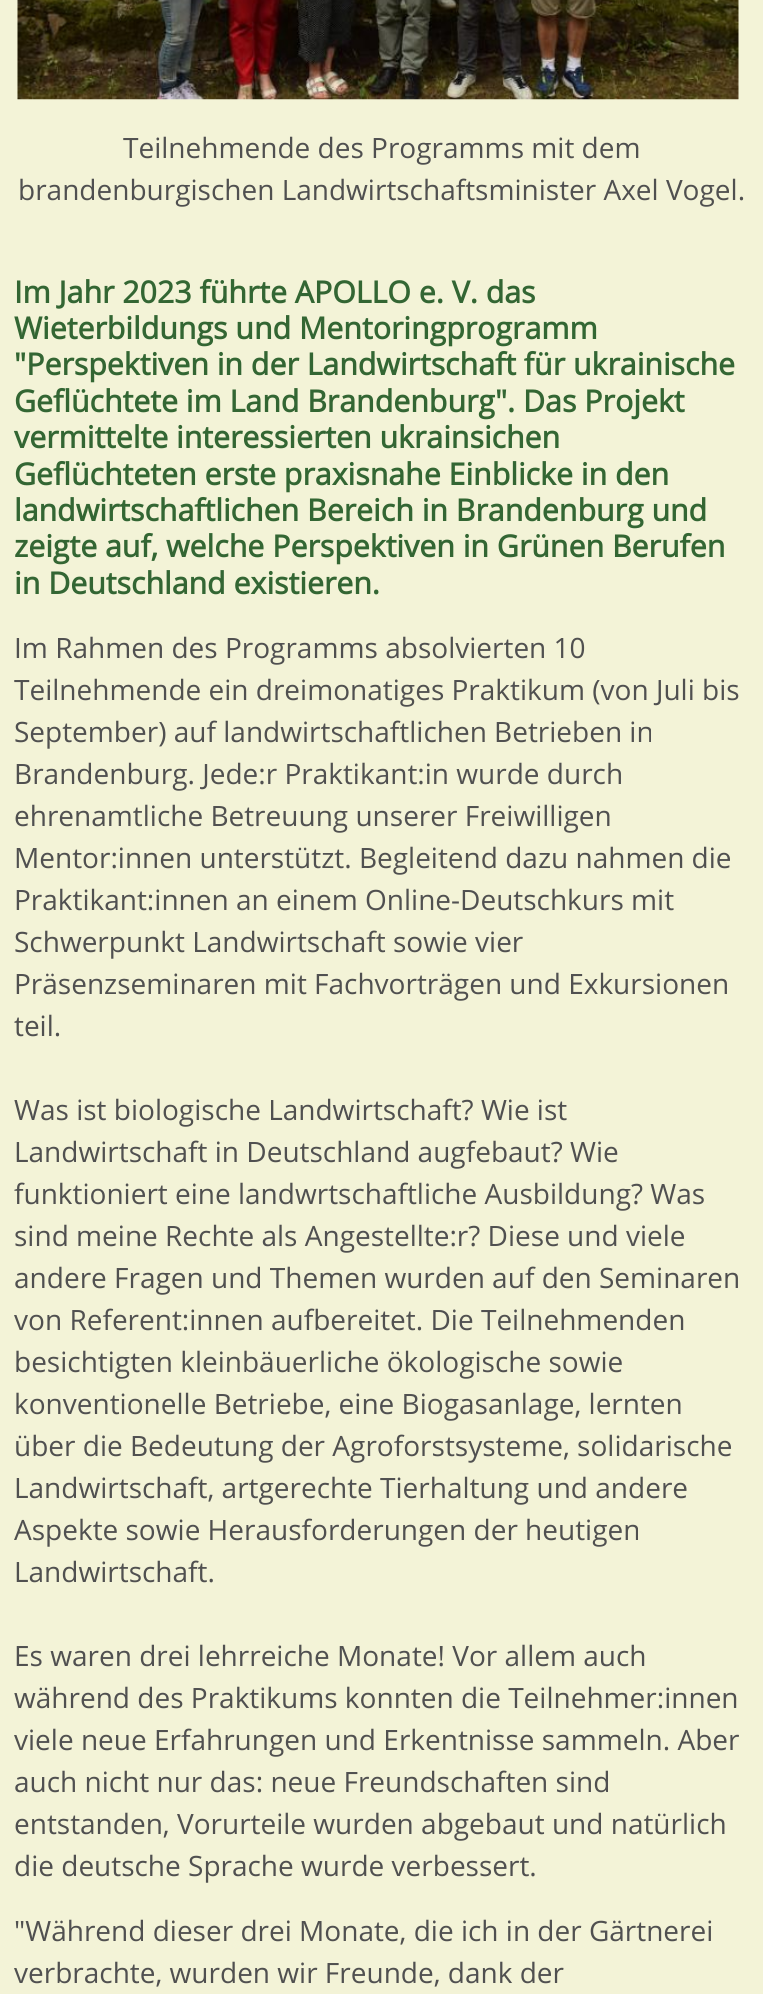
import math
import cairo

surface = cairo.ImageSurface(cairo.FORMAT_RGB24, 763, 1994)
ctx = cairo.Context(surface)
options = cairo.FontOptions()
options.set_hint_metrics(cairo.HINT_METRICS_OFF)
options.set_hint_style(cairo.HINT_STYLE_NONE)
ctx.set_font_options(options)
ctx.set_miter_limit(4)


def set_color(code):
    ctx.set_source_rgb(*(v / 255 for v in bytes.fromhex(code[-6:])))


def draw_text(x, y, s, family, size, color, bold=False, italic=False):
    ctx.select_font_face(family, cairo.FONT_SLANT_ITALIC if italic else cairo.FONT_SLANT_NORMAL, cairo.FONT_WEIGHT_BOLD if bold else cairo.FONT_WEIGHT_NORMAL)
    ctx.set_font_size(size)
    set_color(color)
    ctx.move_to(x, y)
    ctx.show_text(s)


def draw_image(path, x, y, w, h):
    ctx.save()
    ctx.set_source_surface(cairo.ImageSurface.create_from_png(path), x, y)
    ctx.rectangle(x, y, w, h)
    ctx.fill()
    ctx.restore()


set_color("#f3f3d7")
ctx.paint()
draw_image("assets/img1.png", 17, 0, 722, 100)
draw_text(123, 158, "Teilnehmende des Programms mit dem", "Open Sans", 28, "#505050")
draw_text(18, 200, "brandenburgischen Landwirtschaftsminister Axel Vogel.", "Open Sans", 28, "#505050")
draw_text(14, 303, "Im Jahr 2023 führte APOLLO e. V. das", "Open Sans", 30.3, "#336633", bold=True)
draw_text(14, 339, "Wieterbildungs und Mentoringprogramm", "Open Sans", 30.3, "#336633", bold=True)
draw_text(14, 375, "\"Perspektiven in der Landwirtschaft für ukrainische", "Open Sans", 30.3, "#336633", bold=True)
draw_text(14, 412, "Geflüchtete im Land Brandenburg\". Das Projekt", "Open Sans", 30.3, "#336633", bold=True)
draw_text(14, 448, "vermittelte interessierten ukrainsichen", "Open Sans", 30.3, "#336633", bold=True)
draw_text(14, 485, "Geflüchteten erste praxisnahe Einblicke in den", "Open Sans", 30.3, "#336633", bold=True)
draw_text(14, 521, "landwirtschaftlichen Bereich in Brandenburg und", "Open Sans", 30.3, "#336633", bold=True)
draw_text(14, 557, "zeigte auf, welche Perspektiven in Grünen Berufen", "Open Sans", 30.3, "#336633", bold=True)
draw_text(14, 594, "in Deutschland existieren.", "Open Sans", 30.3, "#336633", bold=True)
draw_text(14, 658, "Im Rahmen des Programms absolvierten 10", "Open Sans", 28, "#505050")
draw_text(14, 700, "Teilnehmende ein dreimonatiges Praktikum (von Juli bis", "Open Sans", 28, "#505050")
draw_text(14, 742, "September) auf landwirtschaftlichen Betrieben in", "Open Sans", 28, "#505050")
draw_text(14, 784, "Brandenburg. Jede:r Praktikant:in wurde durch", "Open Sans", 28, "#505050")
draw_text(14, 826, "ehrenamtliche Betreuung unserer Freiwilligen", "Open Sans", 28, "#505050")
draw_text(14, 868, "Mentor:innen unterstützt. Begleitend dazu nahmen die", "Open Sans", 28, "#505050")
draw_text(14, 910, "Praktikant:innen an einem Online-Deutschkurs mit", "Open Sans", 28, "#505050")
draw_text(14, 952, "Schwerpunkt Landwirtschaft sowie vier", "Open Sans", 28, "#505050")
draw_text(14, 994, "Präsenzseminaren mit Fachvorträgen und Exkursionen", "Open Sans", 28, "#505050")
draw_text(14, 1036, "teil.", "Open Sans", 28, "#505050")
draw_text(14, 1120, "Was ist biologische Landwirtschaft? Wie ist", "Open Sans", 28, "#505050")
draw_text(14, 1162, "Landwirtschaft in Deutschland augfebaut? Wie", "Open Sans", 28, "#505050")
draw_text(14, 1204, "funktioniert eine landwrtschaftliche Ausbildung? Was", "Open Sans", 28, "#505050")
draw_text(14, 1246, "sind meine Rechte als Angestellte:r? Diese und viele", "Open Sans", 28, "#505050")
draw_text(14, 1288, "andere Fragen und Themen wurden auf den Seminaren", "Open Sans", 28, "#505050")
draw_text(14, 1330, "von Referent:innen aufbereitet. Die Teilnehmenden", "Open Sans", 28, "#505050")
draw_text(14, 1372, "besichtigten kleinbäuerliche ökologische sowie", "Open Sans", 28, "#505050")
draw_text(14, 1414, "konventionelle Betriebe, eine Biogasanlage, lernten", "Open Sans", 28, "#505050")
draw_text(14, 1456, "über die Bedeutung der Agroforstsysteme, solidarische", "Open Sans", 28, "#505050")
draw_text(14, 1498, "Landwirtschaft, artgerechte Tierhaltung und andere", "Open Sans", 28, "#505050")
draw_text(14, 1540, "Aspekte sowie Herausforderungen der heutigen", "Open Sans", 28, "#505050")
draw_text(14, 1582, "Landwirtschaft.", "Open Sans", 28, "#505050")
draw_text(14, 1666, "Es waren drei lehrreiche Monate! Vor allem auch", "Open Sans", 28, "#505050")
draw_text(14, 1708, "während des Praktikums konnten die Teilnehmer:innen", "Open Sans", 28, "#505050")
draw_text(14, 1750, "viele neue Erfahrungen und Erkentnisse sammeln. Aber", "Open Sans", 28, "#505050")
draw_text(14, 1792, "auch nicht nur das: neue Freundschaften sind", "Open Sans", 28, "#505050")
draw_text(14, 1834, "entstanden, Vorurteile wurden abgebaut und natürlich", "Open Sans", 28, "#505050")
draw_text(14, 1876, "die deutsche Sprache wurde verbessert.", "Open Sans", 28, "#505050")
draw_text(14, 1941, "\"Während dieser drei Monate, die ich in der Gärtnerei", "Open Sans", 28, "#505050")
draw_text(14, 1983, "verbrachte, wurden wir Freunde, dank der", "Open Sans", 28, "#505050")
surface.write_to_png("output.png")
